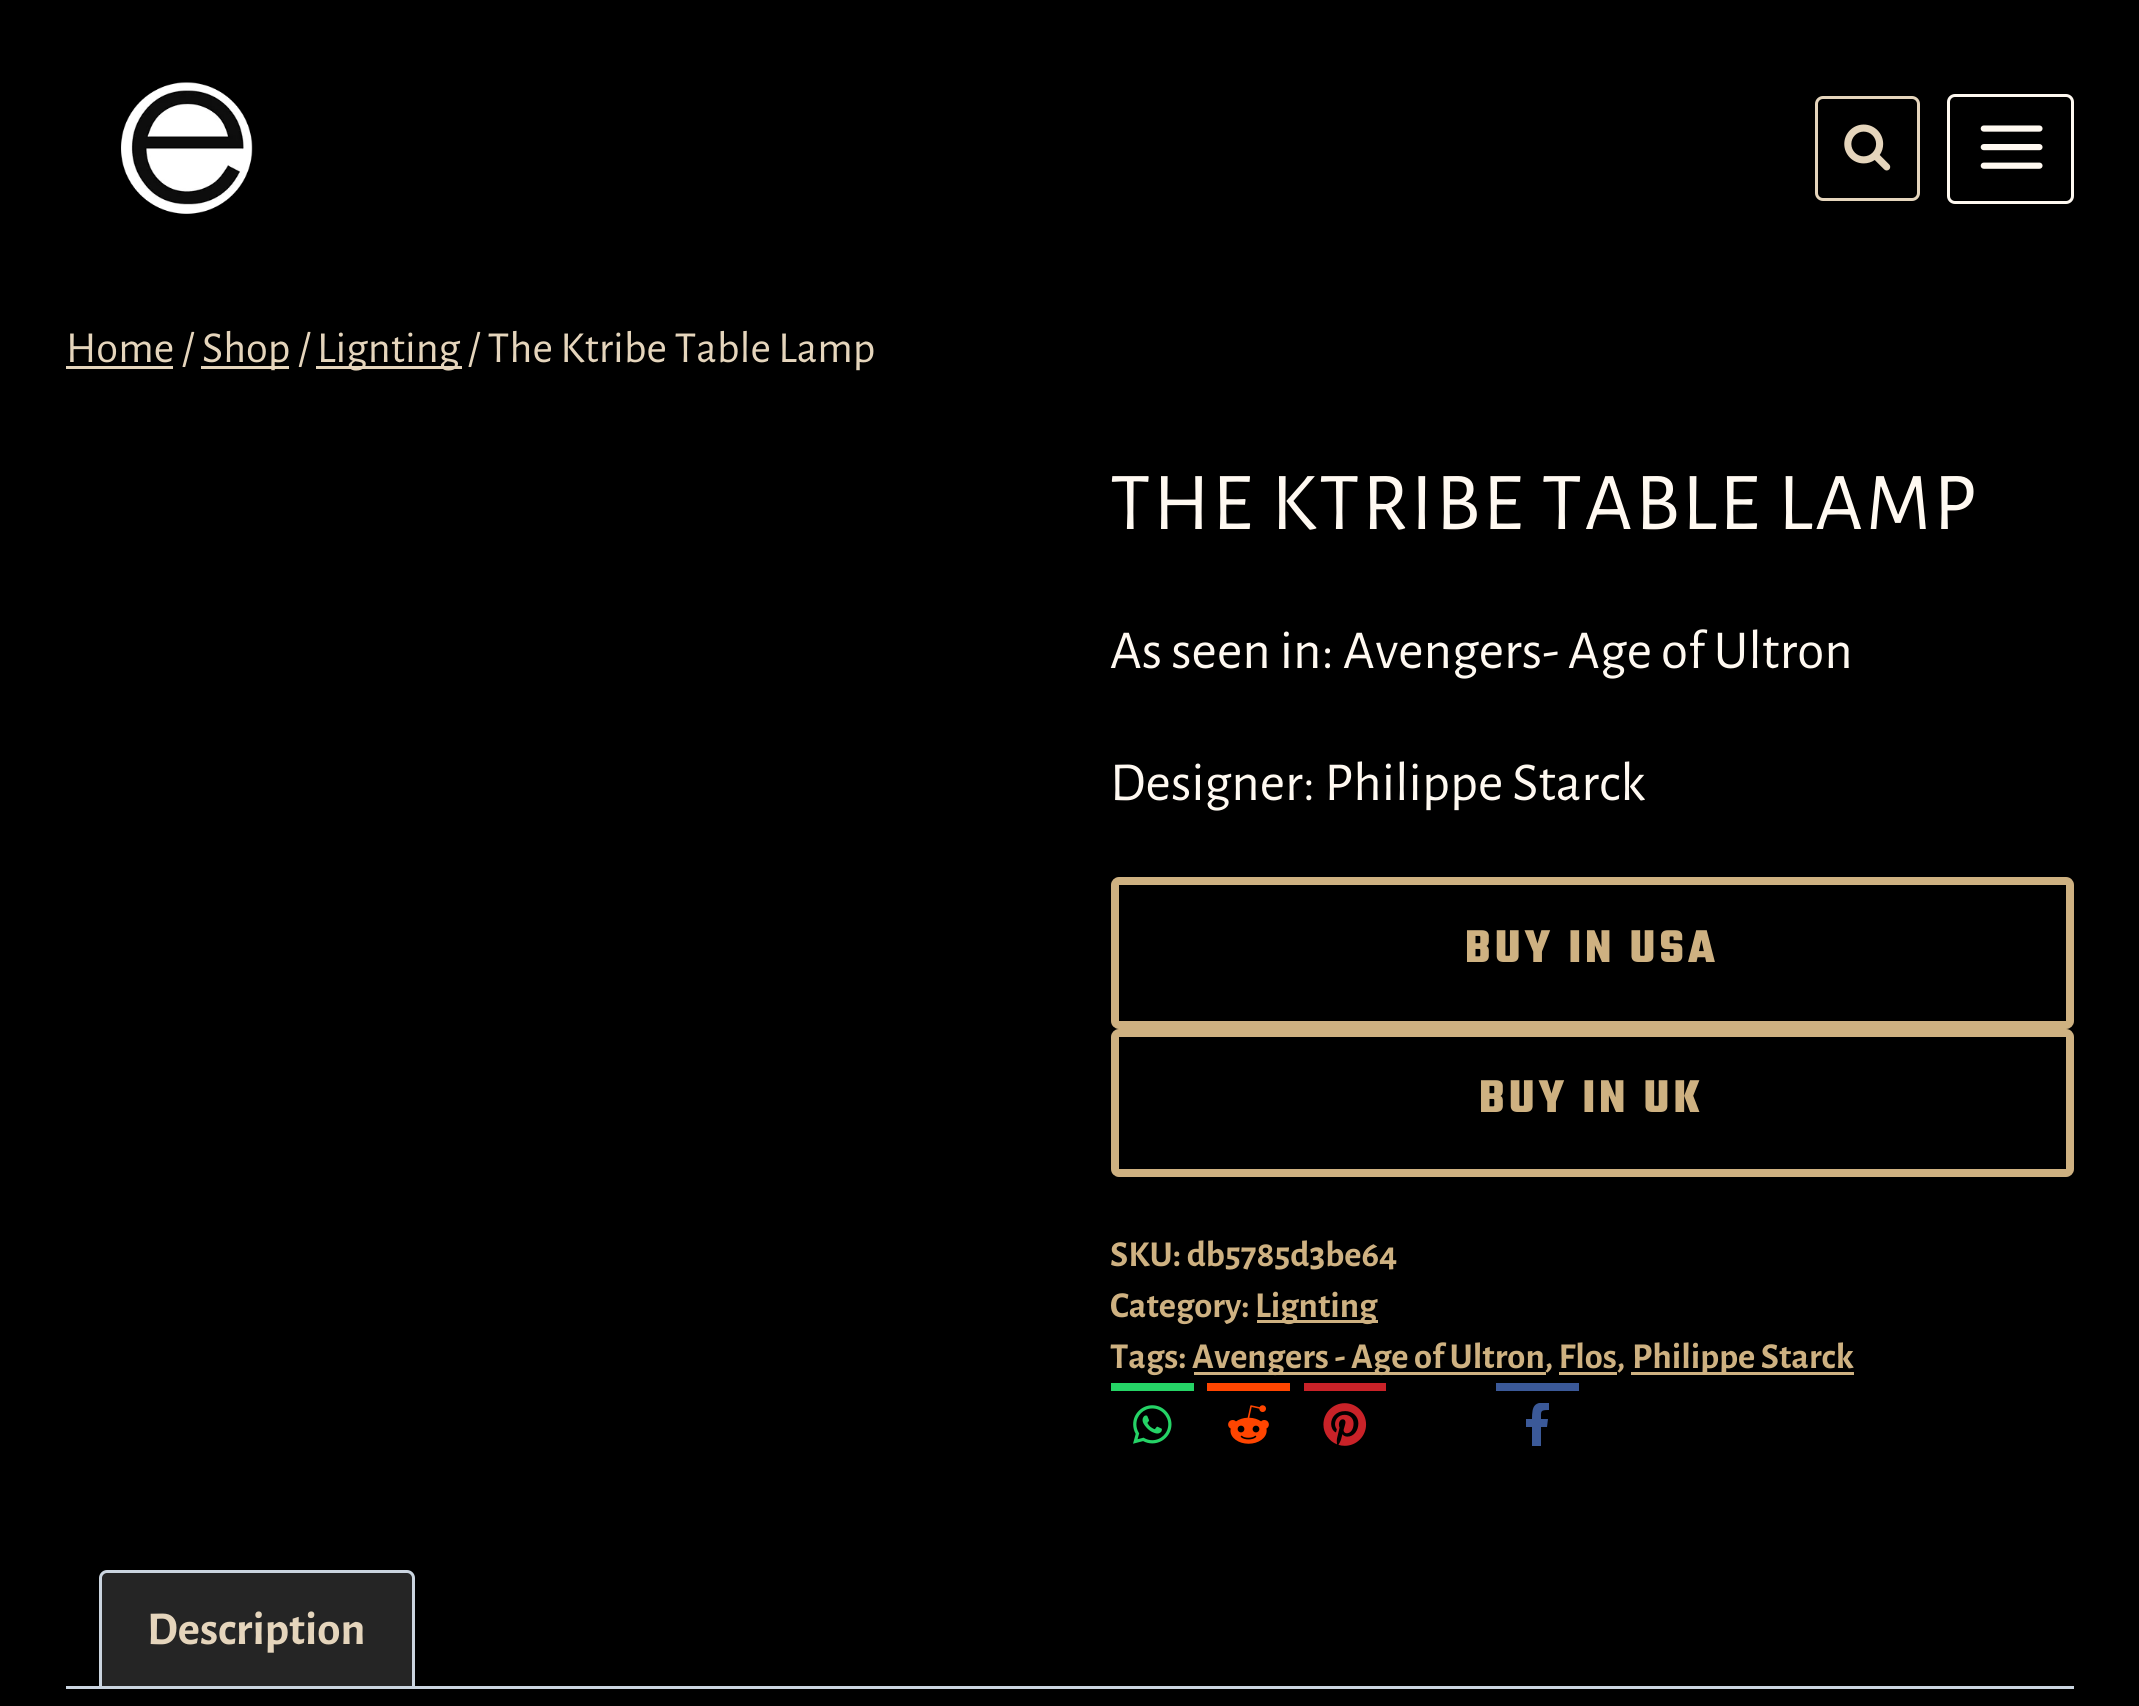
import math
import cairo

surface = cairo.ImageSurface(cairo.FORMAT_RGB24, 2139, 1706)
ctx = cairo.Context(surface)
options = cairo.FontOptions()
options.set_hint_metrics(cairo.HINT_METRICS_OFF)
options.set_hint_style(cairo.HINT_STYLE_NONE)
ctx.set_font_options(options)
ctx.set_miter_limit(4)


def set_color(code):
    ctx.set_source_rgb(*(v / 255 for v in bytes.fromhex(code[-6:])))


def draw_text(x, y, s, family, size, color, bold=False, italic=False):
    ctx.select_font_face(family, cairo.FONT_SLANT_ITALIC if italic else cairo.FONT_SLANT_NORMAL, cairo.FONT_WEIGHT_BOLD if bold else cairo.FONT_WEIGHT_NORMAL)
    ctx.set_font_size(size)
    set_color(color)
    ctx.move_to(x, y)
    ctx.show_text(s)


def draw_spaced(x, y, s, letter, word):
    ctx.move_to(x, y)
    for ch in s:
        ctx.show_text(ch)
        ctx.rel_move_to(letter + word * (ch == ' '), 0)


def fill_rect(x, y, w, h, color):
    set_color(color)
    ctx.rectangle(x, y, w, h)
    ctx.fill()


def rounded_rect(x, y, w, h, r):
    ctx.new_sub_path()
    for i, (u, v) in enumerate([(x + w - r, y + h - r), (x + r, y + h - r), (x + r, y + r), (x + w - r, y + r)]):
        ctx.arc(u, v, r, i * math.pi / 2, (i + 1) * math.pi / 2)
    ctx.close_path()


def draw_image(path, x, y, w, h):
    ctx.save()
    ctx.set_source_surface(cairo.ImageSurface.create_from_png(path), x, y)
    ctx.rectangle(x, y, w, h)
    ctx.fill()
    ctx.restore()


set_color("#000000")
ctx.paint()
draw_image("assets/img1.png", 121, 82, 132, 132)
rounded_rect(1816.5, 97.5, 102, 102, 6.5)
set_color("#e5d5bc")
ctx.set_line_width(3)
ctx.stroke()
draw_image("assets/img2.png", 1844, 124, 47, 47)
rounded_rect(1948.5, 95.5, 124, 107, 6.5)
set_color("#fff9f1")
ctx.stroke()
draw_image("assets/img3.png", 1980, 125, 63, 44)
fill_rect(66, 366, 107, 3, "#e5d5bc")
draw_text(66, 362, "Home /", "Alegreya Sans", 44.4, "#e5d5bc")
fill_rect(201, 366, 88, 3, "#e5d5bc")
draw_text(202, 362, "Shop /", "Alegreya Sans", 44.4, "#e5d5bc")
fill_rect(316, 366, 146, 3, "#e5d5bc")
draw_text(317, 362, "Lignting / The Ktribe Table Lamp", "Alegreya Sans", 44.4, "#e5d5bc")
ctx.select_font_face("Alegreya Sans SC")
ctx.set_font_size(82.5)
set_color("#fff9f1")
draw_spaced(1110, 529, "THE KTRIBE TABLE LAMP", 2.75, 0)
draw_text(1110, 668, "As seen in: Avengers- Age of Ultron", "Alegreya Sans", 55, "#fff9f1")
draw_text(1110, 800, "Designer: Philippe Starck", "Alegreya Sans", 55, "#fff9f1")
rounded_rect(1115, 881, 955, 144, 4)
set_color("#ceb181")
ctx.set_line_width(8)
ctx.stroke()
ctx.select_font_face("Teko", cairo.FONT_SLANT_NORMAL, cairo.FONT_WEIGHT_BOLD)
ctx.set_font_size(49.5)
draw_spaced(1465, 962, "BUY IN USA", 4.1, 0)
rounded_rect(1115, 1033, 955, 140, 4)
ctx.stroke()
draw_spaced(1479, 1112, "BUY IN UK", 4.1, 0)
draw_text(1110, 1266, "SKU: db5785d3be64", "Alegreya Sans", 36.5, "#ceb181", bold=True)
draw_text(1110, 1317, "Category:", "Alegreya Sans", 36.5, "#ceb181", bold=True)
fill_rect(1257, 1320, 121, 3, "#ceb181")
draw_text(1255, 1317, "Lignting", "Alegreya Sans", 36.5, "#ceb181", bold=True)
draw_text(1110, 1368, "Tags:", "Alegreya Sans", 36.5, "#ceb181", bold=True)
fill_rect(1194, 1372, 352, 3, "#ceb181")
draw_text(1192, 1368, "Avengers - Age of Ultron, Flos,", "Alegreya Sans", 36.5, "#ceb181", bold=True)
fill_rect(1631, 1372, 223, 3, "#ceb181")
draw_text(1632, 1368, "Philippe Starck", "Alegreya Sans", 36.5, "#ceb181", bold=True)
fill_rect(1559, 1372, 58, 3, "#ceb181")
fill_rect(1111, 1383, 83, 8, "#25d366")
draw_image("assets/img4.png", 1133, 1405, 39, 39)
fill_rect(1207, 1383, 83, 8, "#ff4500")
draw_image("assets/img5.png", 1228, 1405, 41, 39)
fill_rect(1304, 1383, 82, 8, "#c92228")
draw_image("assets/img6.png", 1323, 1403, 44, 43)
fill_rect(1496, 1383, 83, 8, "#3b5998")
ctx.save()
ctx.rectangle(1515, 1403, 44, 44)
ctx.clip()
ctx.new_path()
ctx.move_to(1532, 1446)
ctx.line_to(1532, 1427)
ctx.line_to(1526, 1427)
ctx.line_to(1526, 1419)
ctx.line_to(1532, 1419)
ctx.curve_to(1532, 1406, 1534, 1401, 1549, 1403)
ctx.line_to(1549, 1410)
ctx.curve_to(1540, 1410, 1541, 1411, 1541, 1419)
ctx.line_to(1548, 1419)
ctx.line_to(1547, 1427)
ctx.line_to(1541, 1427)
ctx.line_to(1541, 1446)
ctx.fill()
ctx.restore()
set_color("#252525")
ctx.new_path()
ctx.move_to(107, 1571.5)
ctx.line_to(407, 1571.5)
ctx.curve_to(410.5, 1571.5, 413.5, 1574.5, 413.5, 1578)
ctx.line_to(413.5, 1687.5)
ctx.line_to(100.5, 1687.5)
ctx.line_to(100.5, 1578)
ctx.curve_to(100.5, 1574.5, 103.5, 1571.5, 107, 1571.5)
ctx.close_path()
ctx.fill_preserve()
set_color("#cbd5e0")
ctx.set_line_width(3)
ctx.stroke()
draw_text(147, 1644, "Description", "Alegreya Sans", 47, "#e5d5bc", bold=True)
fill_rect(66, 1686, 2008, 3, "#cbd5e0")
surface.write_to_png("output.png")
